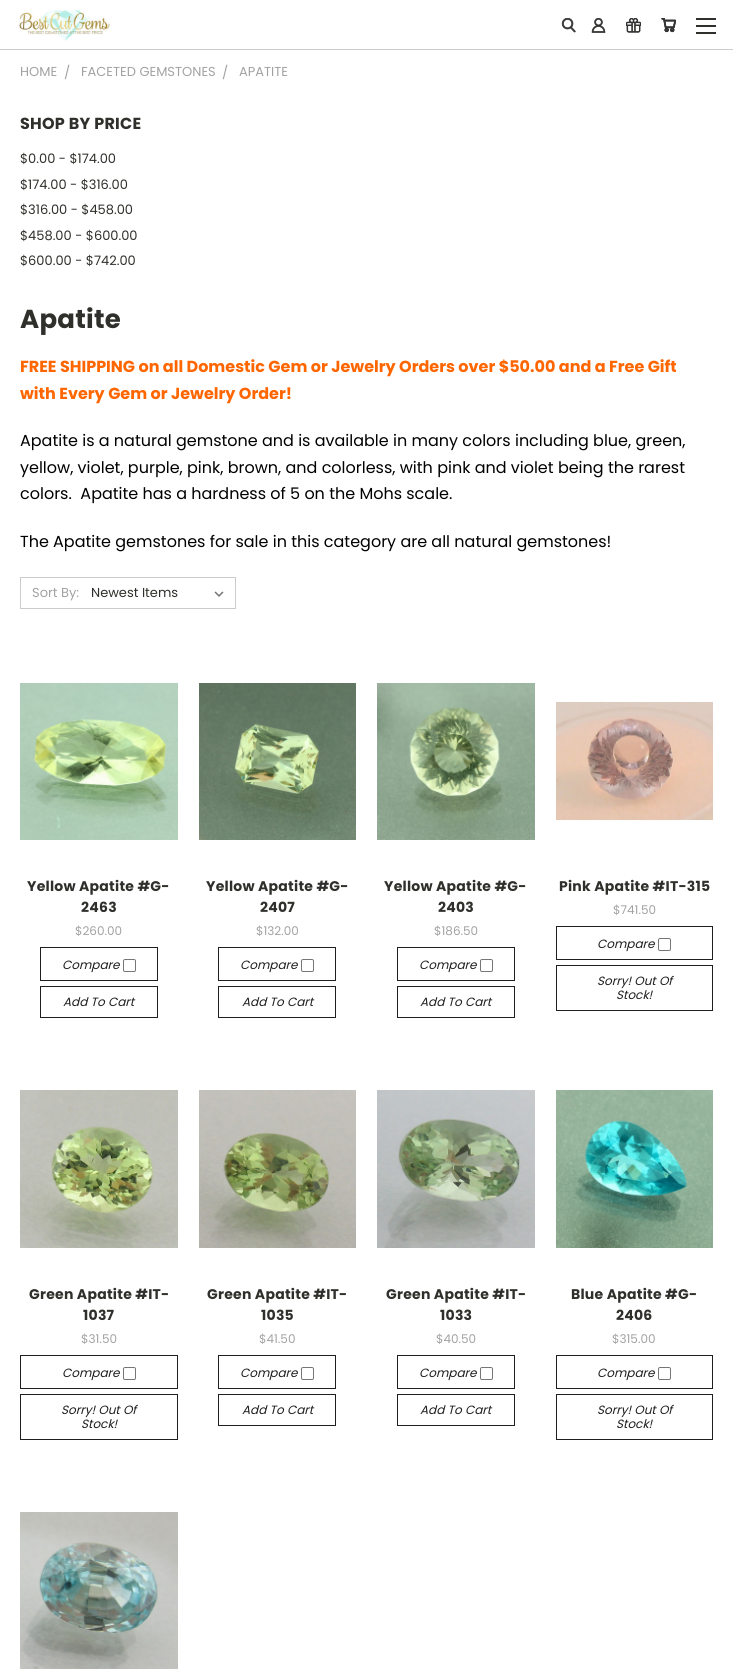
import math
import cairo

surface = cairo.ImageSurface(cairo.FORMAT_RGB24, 733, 1671)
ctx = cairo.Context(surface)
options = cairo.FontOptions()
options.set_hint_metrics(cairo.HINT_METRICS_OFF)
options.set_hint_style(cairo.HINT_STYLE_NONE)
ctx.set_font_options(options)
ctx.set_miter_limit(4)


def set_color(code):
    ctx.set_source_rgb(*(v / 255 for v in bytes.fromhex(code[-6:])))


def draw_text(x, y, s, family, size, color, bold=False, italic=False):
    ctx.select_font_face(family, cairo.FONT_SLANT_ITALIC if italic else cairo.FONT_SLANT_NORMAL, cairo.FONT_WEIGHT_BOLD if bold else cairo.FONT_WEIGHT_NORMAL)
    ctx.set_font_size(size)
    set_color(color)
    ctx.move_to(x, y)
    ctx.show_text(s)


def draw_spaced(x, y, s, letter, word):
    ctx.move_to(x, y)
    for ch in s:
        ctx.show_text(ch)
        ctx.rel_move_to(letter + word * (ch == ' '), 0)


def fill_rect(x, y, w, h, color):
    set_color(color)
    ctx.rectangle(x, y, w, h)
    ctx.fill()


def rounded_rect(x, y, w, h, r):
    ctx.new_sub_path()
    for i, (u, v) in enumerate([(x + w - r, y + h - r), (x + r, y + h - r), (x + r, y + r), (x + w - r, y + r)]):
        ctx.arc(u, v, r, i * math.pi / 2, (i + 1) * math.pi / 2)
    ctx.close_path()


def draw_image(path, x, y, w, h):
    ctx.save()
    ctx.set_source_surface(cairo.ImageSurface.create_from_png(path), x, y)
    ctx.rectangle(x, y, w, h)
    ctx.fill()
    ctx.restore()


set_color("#ffffff")
ctx.paint()
fill_rect(0, 49, 733, 1, "#cdcccc")
draw_image("assets/img1.png", 18, 9, 92, 32)
draw_image("assets/img2.png", 561, 18, 15, 15)
draw_image("assets/img3.png", 591, 18, 15, 15)
draw_image("assets/img4.png", 626, 18, 15, 15)
draw_image("assets/img5.png", 661, 18, 15, 15)
fill_rect(696, 25, 20, 2, "#2f2f2b")
fill_rect(696, 18, 20, 2, "#2f2f2b")
fill_rect(696, 32, 20, 2, "#2f2f2b")
draw_text(20, 76, "HOME", "Poppins", 13, "#a2a2a2")
draw_text(64, 77, "/", "Poppins", 13, "#a2a2a2")
draw_text(81, 76, "FACETED GEMSTONES", "Poppins", 13, "#a2a2a2")
draw_text(222, 77, "/", "Poppins", 13, "#a2a2a2")
draw_text(239, 76, "APATITE", "Poppins", 13, "#a2a2a2")
ctx.select_font_face("Poppins", cairo.FONT_SLANT_NORMAL, cairo.FONT_WEIGHT_BOLD)
ctx.set_font_size(16)
set_color("#2f2f2b")
draw_spaced(20, 129, "SHOP BY PRICE", 0.25, 0)
draw_text(20, 163, "$0.00 - $174.00", "Poppins", 13, "#2f2f2b")
draw_text(20, 189, "$174.00 - $316.00", "Poppins", 13, "#2f2f2b")
draw_text(20, 214, "$316.00 - $458.00", "Poppins", 13, "#2f2f2b")
draw_text(20, 240, "$458.00 - $600.00", "Poppins", 13, "#2f2f2b")
draw_text(20, 265, "$600.00 - $742.00", "Poppins", 13, "#2f2f2b")
ctx.select_font_face("Poppins", cairo.FONT_SLANT_NORMAL, cairo.FONT_WEIGHT_BOLD)
ctx.set_font_size(26)
draw_spaced(20, 328, "Apatite", 0.25, 0)
draw_text(20, 372, "FREE SHIPPING on all Domestic Gem or Jewelry Orders over $50.00 and a Free Gift", "Poppins", 16, "#ff6600", bold=True)
draw_text(20, 399, "with Every Gem or Jewelry Order!", "Poppins", 16, "#ff6600", bold=True)
draw_text(20, 446, "Apatite is a natural gemstone and is available in many colors including blue, green,", "Poppins", 16, "#000000")
draw_text(20, 473, "yellow, violet, purple, pink, brown, and colorless, with pink and violet being the rarest", "Poppins", 16, "#000000")
draw_text(20, 499, "colors.  Apatite has a hardness of 5 on the Mohs scale.", "Poppins", 16, "#000000")
draw_text(20, 547, "The Apatite gemstones for sale in this category are all natural gemstones!", "Poppins", 16, "#000000")
ctx.rectangle(20.5, 577.5, 215, 31)
set_color("#cccccc")
ctx.set_line_width(1)
ctx.stroke()
draw_text(32, 597, "Sort By:", "Poppins", 13, "#a2a2a2")
draw_image("assets/img6.png", 214, 591, 10, 6)
draw_text(91, 597, "Newest Items", "Poppins", 13, "#2f2f2b")
draw_image("assets/img7.png", 20, 683, 158, 157)
ctx.select_font_face("Poppins", cairo.FONT_SLANT_NORMAL, cairo.FONT_WEIGHT_BOLD)
ctx.set_font_size(14)
draw_spaced(27, 891, "Yellow Apatite #G-", 0.25, 0)
draw_spaced(81, 912, "2463", 0.25, 0)
draw_text(75, 935, "$260.00", "Poppins", 12, "#a2a2a2")
ctx.rectangle(40.5, 947.5, 117, 33)
set_color("#1f1f1f")
ctx.stroke()
draw_text(62, 969, "Compare", "Poppins", 12, "#1f1f1f", italic=True)
rounded_rect(123.5, 959.5, 12, 12, 1.5)
set_color("#767676")
ctx.stroke()
ctx.rectangle(40.5, 986.5, 117, 31)
set_color("#1f1f1f")
ctx.stroke()
draw_text(63, 1006, "Add To Cart", "Poppins", 12, "#1f1f1f", italic=True)
draw_image("assets/img8.png", 199, 683, 157, 157)
ctx.select_font_face("Poppins", cairo.FONT_SLANT_NORMAL, cairo.FONT_WEIGHT_BOLD)
ctx.set_font_size(14)
set_color("#2f2f2b")
draw_spaced(206, 891, "Yellow Apatite #G-", 0.25, 0)
draw_spaced(260, 912, "2407", 0.25, 0)
draw_text(256, 935, "$132.00", "Poppins", 12, "#a2a2a2")
ctx.rectangle(218.5, 947.5, 117, 33)
set_color("#1f1f1f")
ctx.stroke()
draw_text(240, 969, "Compare", "Poppins", 12, "#1f1f1f", italic=True)
rounded_rect(301.5, 959.5, 12, 12, 1.5)
set_color("#767676")
ctx.stroke()
ctx.rectangle(218.5, 986.5, 117, 31)
set_color("#1f1f1f")
ctx.stroke()
draw_text(242, 1006, "Add To Cart", "Poppins", 12, "#1f1f1f", italic=True)
draw_image("assets/img9.png", 377, 683, 158, 157)
ctx.select_font_face("Poppins", cairo.FONT_SLANT_NORMAL, cairo.FONT_WEIGHT_BOLD)
ctx.set_font_size(14)
set_color("#2f2f2b")
draw_spaced(384, 891, "Yellow Apatite #G-", 0.25, 0)
draw_spaced(438, 912, "2403", 0.25, 0)
draw_text(434, 935, "$186.50", "Poppins", 12, "#a2a2a2")
ctx.rectangle(397.5, 947.5, 117, 33)
set_color("#1f1f1f")
ctx.stroke()
draw_text(419, 969, "Compare", "Poppins", 12, "#1f1f1f", italic=True)
rounded_rect(480.5, 959.5, 12, 12, 1.5)
set_color("#767676")
ctx.stroke()
ctx.rectangle(397.5, 986.5, 117, 31)
set_color("#1f1f1f")
ctx.stroke()
draw_text(420, 1006, "Add To Cart", "Poppins", 12, "#1f1f1f", italic=True)
draw_image("assets/img10.png", 556, 702, 157, 118)
ctx.select_font_face("Poppins", cairo.FONT_SLANT_NORMAL, cairo.FONT_WEIGHT_BOLD)
ctx.set_font_size(14)
set_color("#2f2f2b")
draw_spaced(559, 891, "Pink Apatite #IT-315", 0.25, 0)
draw_text(613, 914, "$741.50", "Poppins", 12, "#a2a2a2")
ctx.rectangle(556.5, 926.5, 156, 33)
set_color("#1f1f1f")
ctx.stroke()
draw_text(597, 948, "Compare", "Poppins", 12, "#1f1f1f", italic=True)
rounded_rect(658.5, 938.5, 12, 12, 1.5)
set_color("#767676")
ctx.stroke()
ctx.rectangle(556.5, 965.5, 156, 45)
set_color("#1f1f1f")
ctx.stroke()
draw_text(597, 985, "Sorry! Out Of", "Poppins", 12, "#1f1f1f", italic=True)
draw_text(616, 999, "Stock!", "Poppins", 12, "#1f1f1f", italic=True)
draw_image("assets/img11.png", 20, 1090, 158, 158)
ctx.select_font_face("Poppins", cairo.FONT_SLANT_NORMAL, cairo.FONT_WEIGHT_BOLD)
ctx.set_font_size(14)
set_color("#2f2f2b")
draw_spaced(29, 1299, "Green Apatite #IT-", 0.25, 0)
draw_spaced(83, 1320, "1037", 0.25, 0)
draw_text(81, 1343, "$31.50", "Poppins", 12, "#a2a2a2")
ctx.rectangle(20.5, 1355.5, 157, 33)
set_color("#1f1f1f")
ctx.stroke()
draw_text(62, 1377, "Compare", "Poppins", 12, "#1f1f1f", italic=True)
rounded_rect(123.5, 1367.5, 12, 12, 1.5)
set_color("#767676")
ctx.stroke()
ctx.rectangle(20.5, 1394.5, 157, 45)
set_color("#1f1f1f")
ctx.stroke()
draw_text(61, 1414, "Sorry! Out Of", "Poppins", 12, "#1f1f1f", italic=True)
draw_text(81, 1428, "Stock!", "Poppins", 12, "#1f1f1f", italic=True)
draw_image("assets/img12.png", 199, 1090, 157, 158)
ctx.select_font_face("Poppins", cairo.FONT_SLANT_NORMAL, cairo.FONT_WEIGHT_BOLD)
ctx.set_font_size(14)
set_color("#2f2f2b")
draw_spaced(207, 1299, "Green Apatite #IT-", 0.25, 0)
draw_spaced(261, 1320, "1035", 0.25, 0)
draw_text(259, 1343, "$41.50", "Poppins", 12, "#a2a2a2")
ctx.rectangle(218.5, 1355.5, 117, 33)
set_color("#1f1f1f")
ctx.stroke()
draw_text(240, 1377, "Compare", "Poppins", 12, "#1f1f1f", italic=True)
rounded_rect(301.5, 1367.5, 12, 12, 1.5)
set_color("#767676")
ctx.stroke()
ctx.rectangle(218.5, 1394.5, 117, 31)
set_color("#1f1f1f")
ctx.stroke()
draw_text(242, 1414, "Add To Cart", "Poppins", 12, "#1f1f1f", italic=True)
draw_image("assets/img13.png", 377, 1090, 158, 158)
ctx.select_font_face("Poppins", cairo.FONT_SLANT_NORMAL, cairo.FONT_WEIGHT_BOLD)
ctx.set_font_size(14)
set_color("#2f2f2b")
draw_spaced(386, 1299, "Green Apatite #IT-", 0.25, 0)
draw_spaced(440, 1320, "1033", 0.25, 0)
draw_text(436, 1343, "$40.50", "Poppins", 12, "#a2a2a2")
ctx.rectangle(397.5, 1355.5, 117, 33)
set_color("#1f1f1f")
ctx.stroke()
draw_text(419, 1377, "Compare", "Poppins", 12, "#1f1f1f", italic=True)
rounded_rect(480.5, 1367.5, 12, 12, 1.5)
set_color("#767676")
ctx.stroke()
ctx.rectangle(397.5, 1394.5, 117, 31)
set_color("#1f1f1f")
ctx.stroke()
draw_text(420, 1414, "Add To Cart", "Poppins", 12, "#1f1f1f", italic=True)
draw_image("assets/img14.png", 556, 1090, 157, 158)
ctx.select_font_face("Poppins", cairo.FONT_SLANT_NORMAL, cairo.FONT_WEIGHT_BOLD)
ctx.set_font_size(14)
set_color("#2f2f2b")
draw_spaced(571, 1299, "Blue Apatite #G-", 0.25, 0)
draw_spaced(616, 1320, "2406", 0.25, 0)
draw_text(612, 1343, "$315.00", "Poppins", 12, "#a2a2a2")
ctx.rectangle(556.5, 1355.5, 156, 33)
set_color("#1f1f1f")
ctx.stroke()
draw_text(597, 1377, "Compare", "Poppins", 12, "#1f1f1f", italic=True)
rounded_rect(658.5, 1367.5, 12, 12, 1.5)
set_color("#767676")
ctx.stroke()
ctx.rectangle(556.5, 1394.5, 156, 45)
set_color("#1f1f1f")
ctx.stroke()
draw_text(597, 1414, "Sorry! Out Of", "Poppins", 12, "#1f1f1f", italic=True)
draw_text(616, 1428, "Stock!", "Poppins", 12, "#1f1f1f", italic=True)
draw_image("assets/img15.png", 20, 1512, 158, 157)
surface.write_to_png("output.png")
